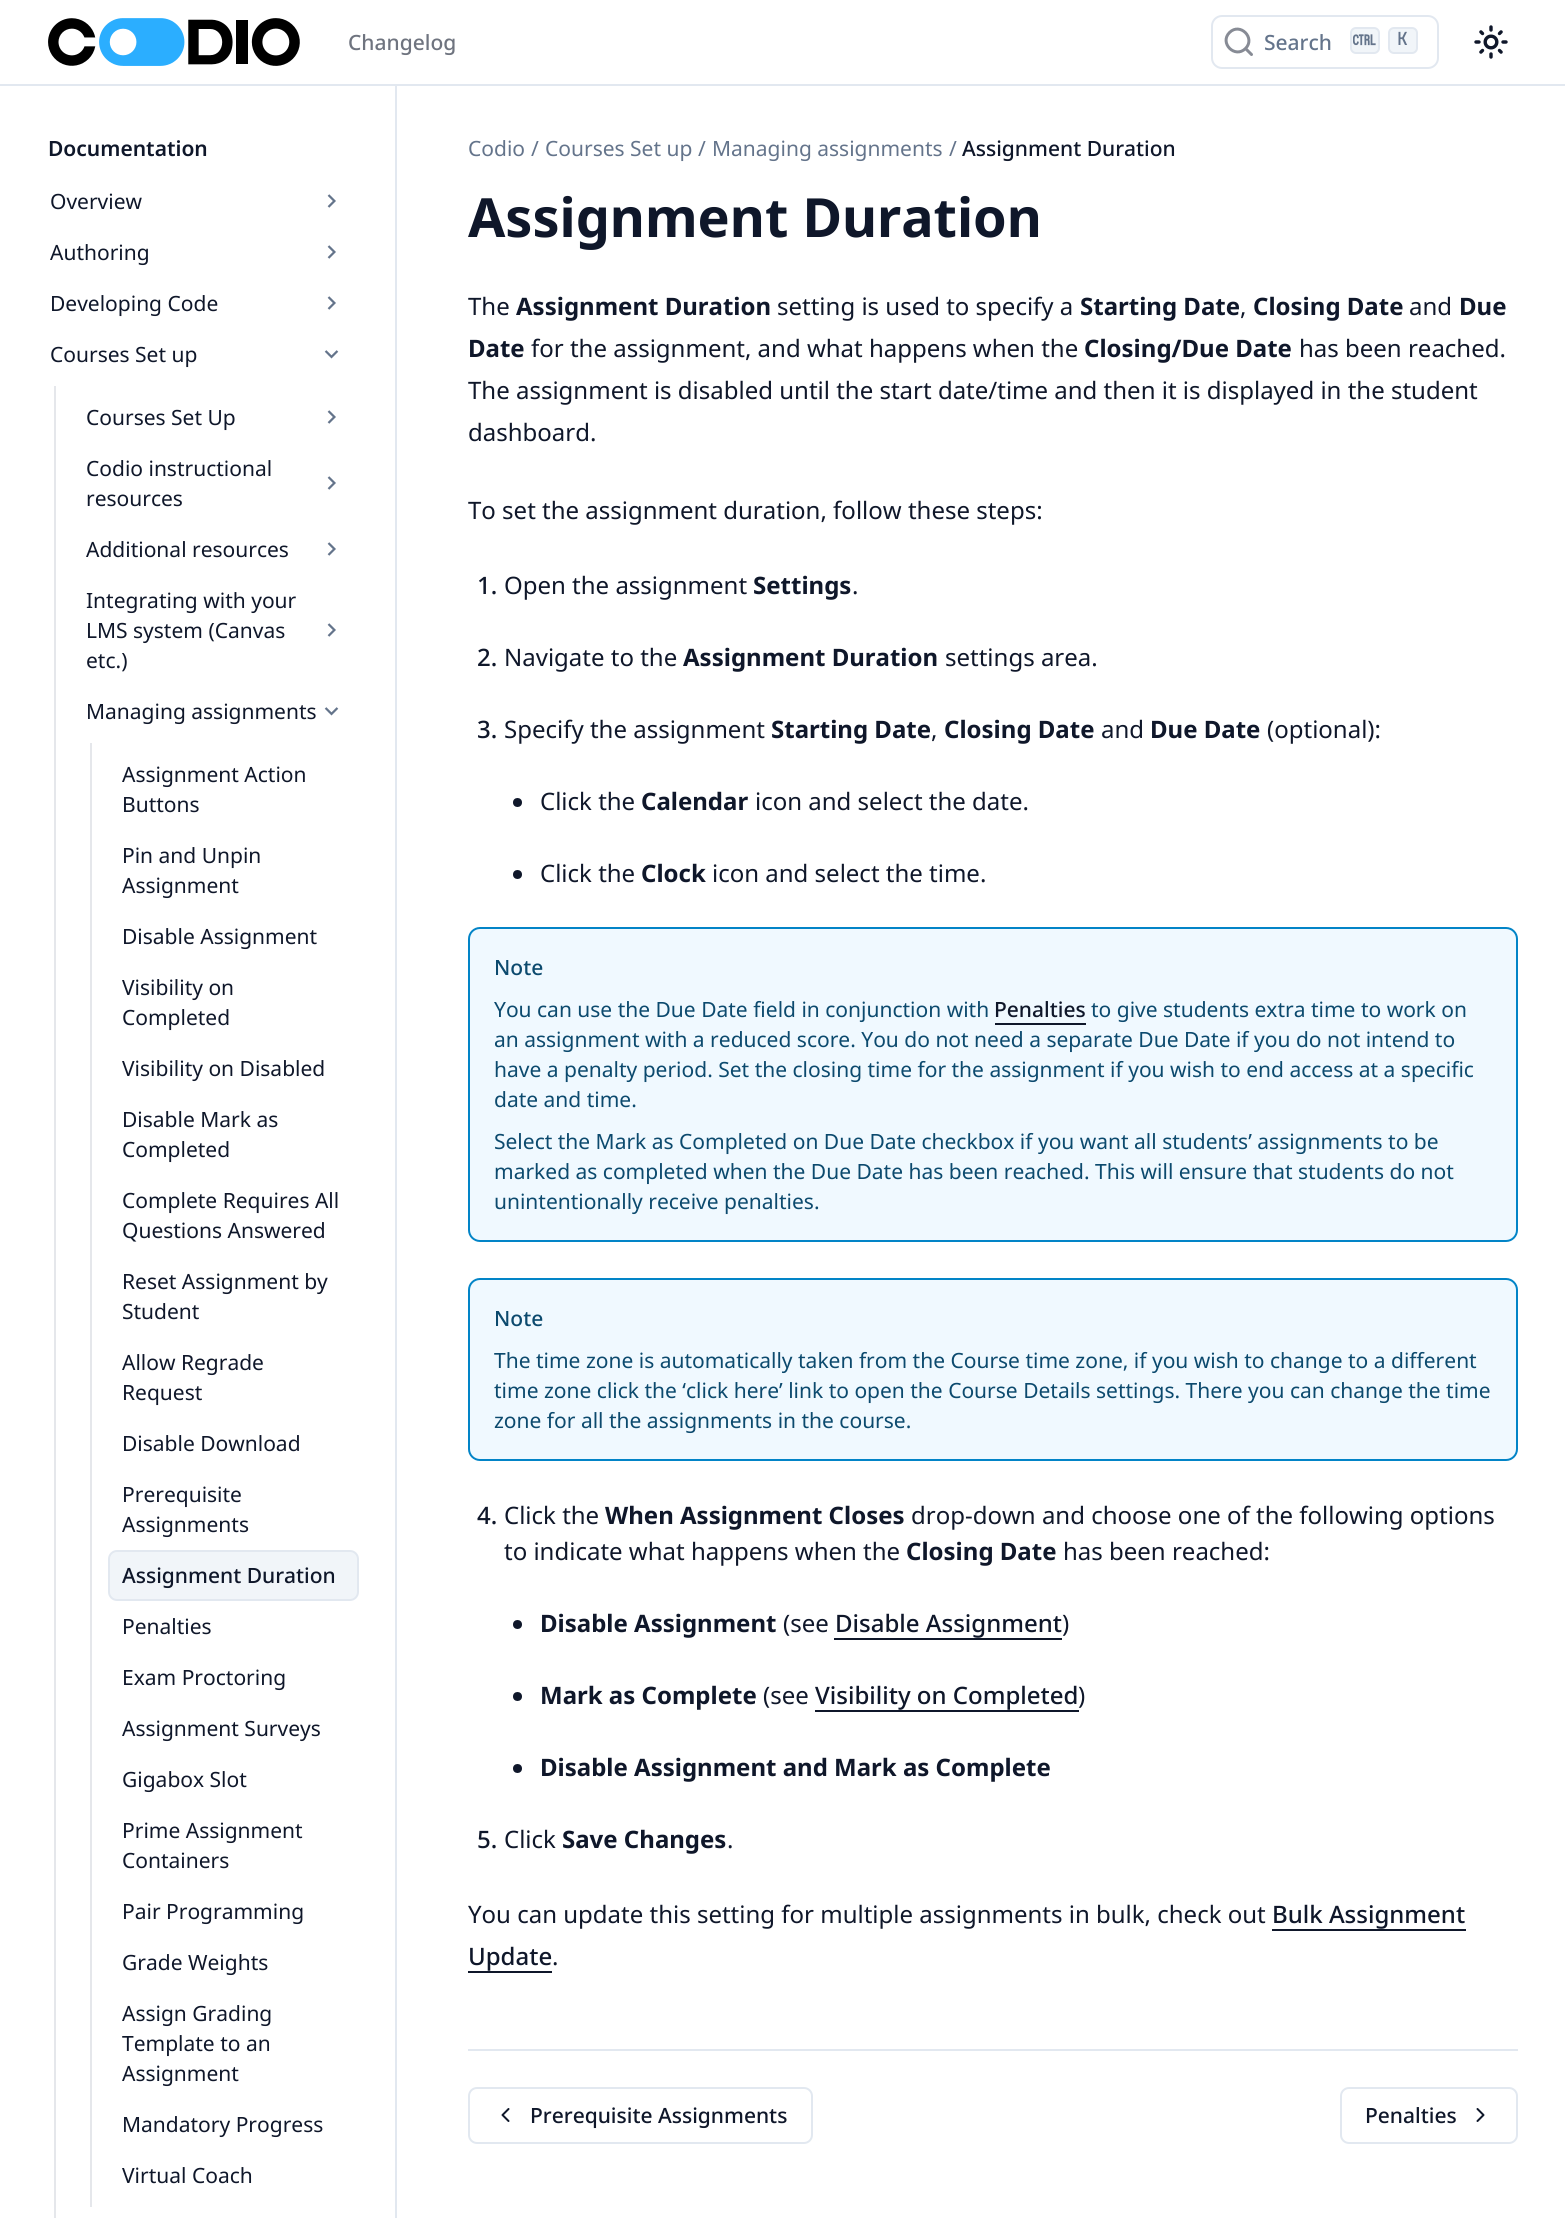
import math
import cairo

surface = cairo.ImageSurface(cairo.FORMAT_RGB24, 1565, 2218)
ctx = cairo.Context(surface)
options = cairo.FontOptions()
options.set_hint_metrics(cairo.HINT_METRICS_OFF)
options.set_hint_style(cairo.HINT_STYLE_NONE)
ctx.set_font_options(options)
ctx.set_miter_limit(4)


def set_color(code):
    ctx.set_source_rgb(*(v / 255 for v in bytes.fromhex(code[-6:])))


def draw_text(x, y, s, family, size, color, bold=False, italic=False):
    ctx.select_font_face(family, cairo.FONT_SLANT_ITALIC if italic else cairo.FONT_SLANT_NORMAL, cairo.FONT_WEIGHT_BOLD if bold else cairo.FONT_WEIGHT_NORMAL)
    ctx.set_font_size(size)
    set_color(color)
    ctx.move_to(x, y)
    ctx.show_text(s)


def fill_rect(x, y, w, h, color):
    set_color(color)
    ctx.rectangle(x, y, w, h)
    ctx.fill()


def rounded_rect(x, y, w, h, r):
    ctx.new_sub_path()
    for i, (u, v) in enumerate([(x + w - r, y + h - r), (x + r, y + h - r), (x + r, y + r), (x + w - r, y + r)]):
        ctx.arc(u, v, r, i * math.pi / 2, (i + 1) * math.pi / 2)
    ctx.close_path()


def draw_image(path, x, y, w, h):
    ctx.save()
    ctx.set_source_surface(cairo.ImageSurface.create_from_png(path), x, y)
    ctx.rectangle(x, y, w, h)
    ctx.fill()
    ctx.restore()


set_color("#ffffff")
ctx.paint()
fill_rect(0, 84, 1565, 2, "#e2e8f0")
draw_image("assets/img1.png", 48, 18, 252, 48)
draw_text(348, 50, "Changelog", "Noto Sans Medium", 21, "#6f747f")
rounded_rect(1212, 16, 226, 52, 10)
set_color("#e2e8f0")
ctx.stroke()
ctx.new_path()
ctx.move_to(1245.5, 48.5)
ctx.line_to(1251.5, 54.5)
ctx.line_to(1245.5, 48.5)
ctx.curve_to(1235, 59, 1219, 43, 1229.5, 32.5)
ctx.curve_to(1240, 22, 1256, 38, 1245.5, 48.5)
ctx.close_path()
set_color("#878b95")
ctx.set_line_width(3)
ctx.set_line_cap(cairo.LINE_CAP_ROUND)
ctx.set_line_join(cairo.LINE_JOIN_ROUND)
ctx.stroke()
draw_text(1264, 50, "Search", "Noto Sans Medium", 21, "#64748b")
set_color("#f1f5f9")
rounded_rect(1351, 28, 28, 25, 5)
ctx.fill_preserve()
set_color("#e2e8f0")
ctx.set_line_width(2)
ctx.set_line_cap(cairo.LINE_CAP_BUTT)
ctx.set_line_join(cairo.LINE_JOIN_MITER)
ctx.stroke()
draw_image("assets/img2.png", 1353, 34, 23, 12)
set_color("#f1f5f9")
rounded_rect(1389, 28, 28, 25, 5)
ctx.fill_preserve()
set_color("#e2e8f0")
ctx.stroke()
draw_text(1397, 45, "K", "JetBrains Mono Medium", 18, "#64748b")
draw_image("assets/img3.png", 1474, 25, 34, 34)
fill_rect(395, 86, 2, 2132, "#e2e8f0")
draw_text(48, 156, "Documentation", "Noto Sans SemiBold", 21, "#0f172a")
draw_text(50, 209, "Overview", "Noto Sans", 21, "#0f172a")
draw_image("assets/img4.png", 327, 194, 9, 14)
draw_text(50, 260, "Authoring", "Noto Sans", 21, "#0f172a")
draw_image("assets/img4.png", 327, 245, 9, 14)
draw_text(50, 311, "Developing Code", "Noto Sans", 21, "#0f172a")
draw_image("assets/img4.png", 327, 296, 9, 14)
draw_text(50, 362, "Courses Set up", "Noto Sans", 21, "#0f172a")
draw_image("assets/img5.png", 324, 350, 15, 9)
fill_rect(54, 386, 2, 1832, "#e5e7eb")
draw_text(86, 425, "Courses Set Up", "Noto Sans", 21, "#0f172a")
draw_image("assets/img4.png", 327, 410, 9, 14)
draw_text(86, 476, "Codio instructional", "Noto Sans", 21, "#0f172a")
draw_image("assets/img4.png", 327, 476, 9, 14)
draw_text(86, 506, "resources", "Noto Sans", 21, "#0f172a")
draw_text(86, 557, "Additional resources", "Noto Sans", 21, "#0f172a")
draw_image("assets/img4.png", 327, 542, 9, 14)
draw_text(86, 608, "Integrating with your", "Noto Sans", 21, "#0f172a")
draw_text(86, 638, "LMS system (Canvas", "Noto Sans", 21, "#0f172a")
draw_image("assets/img4.png", 327, 623, 9, 14)
draw_text(86, 668, "etc.)", "Noto Sans", 21, "#0f172a")
draw_text(86, 719, "Managing assignments", "Noto Sans", 21, "#0f172a")
draw_image("assets/img5.png", 324, 707, 15, 9)
fill_rect(90, 743, 2, 1464, "#e5e7eb")
draw_text(122, 782, "Assignment Action", "Noto Sans", 21, "#0f172a")
draw_text(122, 812, "Buttons", "Noto Sans", 21, "#0f172a")
draw_text(122, 863, "Pin and Unpin", "Noto Sans", 21, "#0f172a")
draw_text(122, 893, "Assignment", "Noto Sans", 21, "#0f172a")
draw_text(122, 944, "Disable Assignment", "Noto Sans", 21, "#0f172a")
draw_text(122, 995, "Visibility on", "Noto Sans", 21, "#0f172a")
draw_text(122, 1025, "Completed", "Noto Sans", 21, "#0f172a")
draw_text(122, 1076, "Visibility on Disabled", "Noto Sans", 21, "#0f172a")
draw_text(122, 1127, "Disable Mark as", "Noto Sans", 21, "#0f172a")
draw_text(122, 1157, "Completed", "Noto Sans", 21, "#0f172a")
draw_text(122, 1208, "Complete Requires All", "Noto Sans", 21, "#0f172a")
draw_text(122, 1238, "Questions Answered", "Noto Sans", 21, "#0f172a")
draw_text(122, 1289, "Reset Assignment by", "Noto Sans", 21, "#0f172a")
draw_text(122, 1319, "Student", "Noto Sans", 21, "#0f172a")
draw_text(122, 1370, "Allow Regrade", "Noto Sans", 21, "#0f172a")
draw_text(122, 1400, "Request", "Noto Sans", 21, "#0f172a")
draw_text(122, 1451, "Disable Download", "Noto Sans", 21, "#0f172a")
draw_text(122, 1502, "Prerequisite", "Noto Sans", 21, "#0f172a")
draw_text(122, 1532, "Assignments", "Noto Sans", 21, "#0f172a")
set_color("#f1f5f9")
rounded_rect(109, 1551, 249, 49, 8)
ctx.fill_preserve()
set_color("#e2e8f0")
ctx.stroke()
draw_text(122, 1583, "Assignment Duration", "Noto Sans Medium", 21, "#0f172a")
draw_text(122, 1634, "Penalties", "Noto Sans", 21, "#0f172a")
draw_text(122, 1685, "Exam Proctoring", "Noto Sans", 21, "#0f172a")
draw_text(122, 1736, "Assignment Surveys", "Noto Sans", 21, "#0f172a")
draw_text(122, 1787, "Gigabox Slot", "Noto Sans", 21, "#0f172a")
draw_text(122, 1838, "Prime Assignment", "Noto Sans", 21, "#0f172a")
draw_text(122, 1868, "Containers", "Noto Sans", 21, "#0f172a")
draw_text(122, 1919, "Pair Programming", "Noto Sans", 21, "#0f172a")
draw_text(122, 1970, "Grade Weights", "Noto Sans", 21, "#0f172a")
draw_text(122, 2021, "Assign Grading", "Noto Sans", 21, "#0f172a")
draw_text(122, 2051, "Template to an", "Noto Sans", 21, "#0f172a")
draw_text(122, 2081, "Assignment", "Noto Sans", 21, "#0f172a")
draw_text(122, 2132, "Mandatory Progress", "Noto Sans", 21, "#0f172a")
draw_text(122, 2183, "Virtual Coach", "Noto Sans", 21, "#0f172a")
draw_text(468, 156, "Codio", "Noto Sans", 21, "#64748b")
draw_text(531, 156, "/", "Noto Sans", 21, "#64748b")
draw_text(545, 156, "Courses Set up", "Noto Sans", 21, "#64748b")
draw_text(698, 156, "/", "Noto Sans", 21, "#64748b")
draw_text(712, 156, "Managing assignments", "Noto Sans", 21, "#64748b")
draw_text(949, 156, "/", "Noto Sans", 21, "#64748b")
draw_text(962, 156, "Assignment Duration", "Noto Sans Medium", 21, "#0f172a")
draw_text(468, 237, "Assignment Duration", "Noto Sans", 54, "#0f172a", bold=True)
draw_text(468, 315, "The", "Noto Sans", 24, "#0f172a")
draw_text(516, 315, "Assignment Duration", "Noto Sans", 24, "#0f172a", bold=True)
draw_text(777, 315, "setting is used to specify a", "Noto Sans", 24, "#0f172a")
draw_text(1080, 315, "Starting Date", "Noto Sans", 24, "#0f172a", bold=True)
draw_text(1240, 315, ",", "Noto Sans", 24, "#0f172a")
draw_text(1253, 315, "Closing Date", "Noto Sans", 24, "#0f172a", bold=True)
draw_text(1409, 315, "and", "Noto Sans", 24, "#0f172a")
draw_text(1459, 315, "Due", "Noto Sans", 24, "#0f172a", bold=True)
draw_text(468, 357, "Date", "Noto Sans", 24, "#0f172a", bold=True)
draw_text(531, 357, "for the assignment, and what happens when the", "Noto Sans", 24, "#0f172a")
draw_text(1084, 357, "Closing/Due Date", "Noto Sans", 24, "#0f172a", bold=True)
draw_text(1299, 357, "has been reached.", "Noto Sans", 24, "#0f172a")
draw_text(468, 399, "The assignment is disabled until the start date/time and then it is displayed in the student", "Noto Sans", 24, "#0f172a")
draw_text(468, 441, "dashboard.", "Noto Sans", 24, "#0f172a")
draw_text(468, 519, "To set the assignment duration, follow these steps:", "Noto Sans", 24, "#0f172a")
draw_text(477, 594, "1.", "Noto Sans Medium", 24, "#0f172a")
draw_text(504, 594, "Open the assignment", "Noto Sans", 24, "#0f172a")
draw_text(753, 594, "Settings", "Noto Sans", 24, "#0f172a", bold=True)
draw_text(852, 594, ".", "Noto Sans", 24, "#0f172a")
draw_text(477, 666, "2.", "Noto Sans Medium", 24, "#0f172a")
draw_text(504, 666, "Navigate to the", "Noto Sans", 24, "#0f172a")
draw_text(683, 666, "Assignment Duration", "Noto Sans", 24, "#0f172a", bold=True)
draw_text(945, 666, "settings area.", "Noto Sans", 24, "#0f172a")
draw_text(477, 738, "3.", "Noto Sans Medium", 24, "#0f172a")
draw_text(504, 738, "Specify the assignment", "Noto Sans", 24, "#0f172a")
draw_text(771, 738, "Starting Date", "Noto Sans", 24, "#0f172a", bold=True)
draw_text(931, 738, ",", "Noto Sans", 24, "#0f172a")
draw_text(944, 738, "Closing Date", "Noto Sans", 24, "#0f172a", bold=True)
draw_text(1101, 738, "and", "Noto Sans", 24, "#0f172a")
draw_text(1150, 738, "Due Date", "Noto Sans", 24, "#0f172a", bold=True)
draw_text(1267, 738, "(optional):", "Noto Sans", 24, "#0f172a")
ctx.new_path()
ctx.arc(517.5, 802.5, 4.5, 0, 2 * math.pi)
ctx.fill()
draw_text(540, 810, "Click the", "Noto Sans", 24, "#0f172a")
draw_text(641, 810, "Calendar", "Noto Sans", 24, "#0f172a", bold=True)
draw_text(755, 810, "icon and select the date.", "Noto Sans", 24, "#0f172a")
ctx.new_path()
ctx.arc(517.5, 874.5, 4.5, 0, 2 * math.pi)
ctx.fill()
draw_text(540, 882, "Click the", "Noto Sans", 24, "#0f172a")
draw_text(641, 882, "Clock", "Noto Sans", 24, "#0f172a", bold=True)
draw_text(712, 882, "icon and select the time.", "Noto Sans", 24, "#0f172a")
set_color("#f0f9ff")
rounded_rect(469, 928, 1048, 313, 11)
ctx.fill_preserve()
set_color("#0284c7")
ctx.stroke()
draw_text(494, 975, "Note", "Noto Sans Medium", 21, "#0c4a6e")
draw_text(494, 1017, "You can use the Due Date field in conjunction with", "Noto Sans", 21, "#0c4a6e")
draw_text(994, 1017, "Penalties", "Noto Sans Medium", 21, "#0f172a")
fill_rect(995, 1023, 91, 2, "#0f172a")
draw_text(1091, 1017, "to give students extra time to work on", "Noto Sans", 21, "#0c4a6e")
draw_text(494, 1047, "an assignment with a reduced score. You do not need a separate Due Date if you do not intend to", "Noto Sans", 21, "#0c4a6e")
draw_text(494, 1077, "have a penalty period. Set the closing time for the assignment if you wish to end access at a specific", "Noto Sans", 21, "#0c4a6e")
draw_text(494, 1107, "date and time.", "Noto Sans", 21, "#0c4a6e")
draw_text(494, 1149, "Select the Mark as Completed on Due Date checkbox if you want all students’ assignments to be", "Noto Sans", 21, "#0c4a6e")
draw_text(494, 1179, "marked as completed when the Due Date has been reached. This will ensure that students do not", "Noto Sans", 21, "#0c4a6e")
draw_text(494, 1209, "unintentionally receive penalties.", "Noto Sans", 21, "#0c4a6e")
set_color("#f0f9ff")
rounded_rect(469, 1279, 1048, 181, 11)
ctx.fill_preserve()
set_color("#0284c7")
ctx.stroke()
draw_text(494, 1326, "Note", "Noto Sans Medium", 21, "#0c4a6e")
draw_text(494, 1368, "The time zone is automatically taken from the Course time zone, if you wish to change to a different", "Noto Sans", 21, "#0c4a6e")
draw_text(494, 1398, "time zone click the ‘click here’ link to open the Course Details settings. There you can change the time", "Noto Sans", 21, "#0c4a6e")
draw_text(494, 1428, "zone for all the assignments in the course.", "Noto Sans", 21, "#0c4a6e")
draw_text(477, 1524, "4.", "Noto Sans Medium", 24, "#0f172a")
draw_text(504, 1524, "Click the", "Noto Sans", 24, "#0f172a")
draw_text(605, 1524, "When Assignment Closes", "Noto Sans", 24, "#0f172a", bold=True)
draw_text(911, 1524, "drop-down and choose one of the following options", "Noto Sans", 24, "#0f172a")
draw_text(504, 1560, "to indicate what happens when the", "Noto Sans", 24, "#0f172a")
draw_text(906, 1560, "Closing Date", "Noto Sans", 24, "#0f172a", bold=True)
draw_text(1063, 1560, "has been reached:", "Noto Sans", 24, "#0f172a")
ctx.new_path()
ctx.arc(517.5, 1624.5, 4.5, 0, 2 * math.pi)
ctx.fill()
draw_text(540, 1632, "Disable Assignment", "Noto Sans", 24, "#0f172a", bold=True)
draw_text(783, 1632, "(see", "Noto Sans", 24, "#0f172a")
draw_text(835, 1632, "Disable Assignment", "Noto Sans Medium", 24, "#0f172a")
fill_rect(834, 1638, 228, 2, "#0f172a")
draw_text(1062, 1632, ")", "Noto Sans", 24, "#0f172a")
ctx.new_path()
ctx.arc(517.5, 1696.5, 4.5, 0, 2 * math.pi)
ctx.fill()
draw_text(540, 1704, "Mark as Complete", "Noto Sans", 24, "#0f172a", bold=True)
draw_text(763, 1704, "(see", "Noto Sans", 24, "#0f172a")
draw_text(815, 1704, "Visibility on Completed", "Noto Sans Medium", 24, "#0f172a")
fill_rect(815, 1710, 264, 2, "#0f172a")
draw_text(1078, 1704, ")", "Noto Sans", 24, "#0f172a")
ctx.new_path()
ctx.arc(517.5, 1768.5, 4.5, 0, 2 * math.pi)
ctx.fill()
draw_text(540, 1776, "Disable Assignment and Mark as Complete", "Noto Sans", 24, "#0f172a", bold=True)
draw_text(477, 1848, "5.", "Noto Sans Medium", 24, "#0f172a")
draw_text(504, 1848, "Click", "Noto Sans", 24, "#0f172a")
draw_text(562, 1848, "Save Changes", "Noto Sans", 24, "#0f172a", bold=True)
draw_text(727, 1848, ".", "Noto Sans", 24, "#0f172a")
draw_text(468, 1923, "You can update this setting for multiple assignments in bulk, check out", "Noto Sans", 24, "#0f172a")
draw_text(1272, 1923, "Bulk Assignment", "Noto Sans Medium", 24, "#0f172a")
fill_rect(1272, 1929, 194, 2, "#0f172a")
draw_text(468, 1965, "Update", "Noto Sans Medium", 24, "#0f172a")
fill_rect(468, 1971, 84, 2, "#0f172a")
draw_text(552, 1965, ".", "Noto Sans", 24, "#0f172a")
fill_rect(468, 2049, 1050, 2, "#e2e8f0")
rounded_rect(469, 2088, 343, 55, 8)
ctx.stroke()
ctx.new_path()
ctx.move_to(508.5, 2121)
ctx.line_to(502.5, 2115)
ctx.line_to(508.5, 2109)
set_color("#0f172a")
ctx.set_line_cap(cairo.LINE_CAP_ROUND)
ctx.set_line_join(cairo.LINE_JOIN_ROUND)
ctx.stroke()
draw_text(530, 2123, "Prerequisite Assignments", "Noto Sans Medium", 21, "#0f172a")
rounded_rect(1341, 2088, 176, 55, 8)
set_color("#e2e8f0")
ctx.set_line_cap(cairo.LINE_CAP_BUTT)
ctx.set_line_join(cairo.LINE_JOIN_MITER)
ctx.stroke()
draw_text(1365, 2123, "Penalties", "Noto Sans Medium", 21, "#0f172a")
ctx.new_path()
ctx.move_to(1477.5, 2121)
ctx.line_to(1483.5, 2115)
ctx.line_to(1477.5, 2109)
ctx.set_line_cap(cairo.LINE_CAP_ROUND)
ctx.set_line_join(cairo.LINE_JOIN_ROUND)
ctx.stroke()
surface.write_to_png("output.png")
